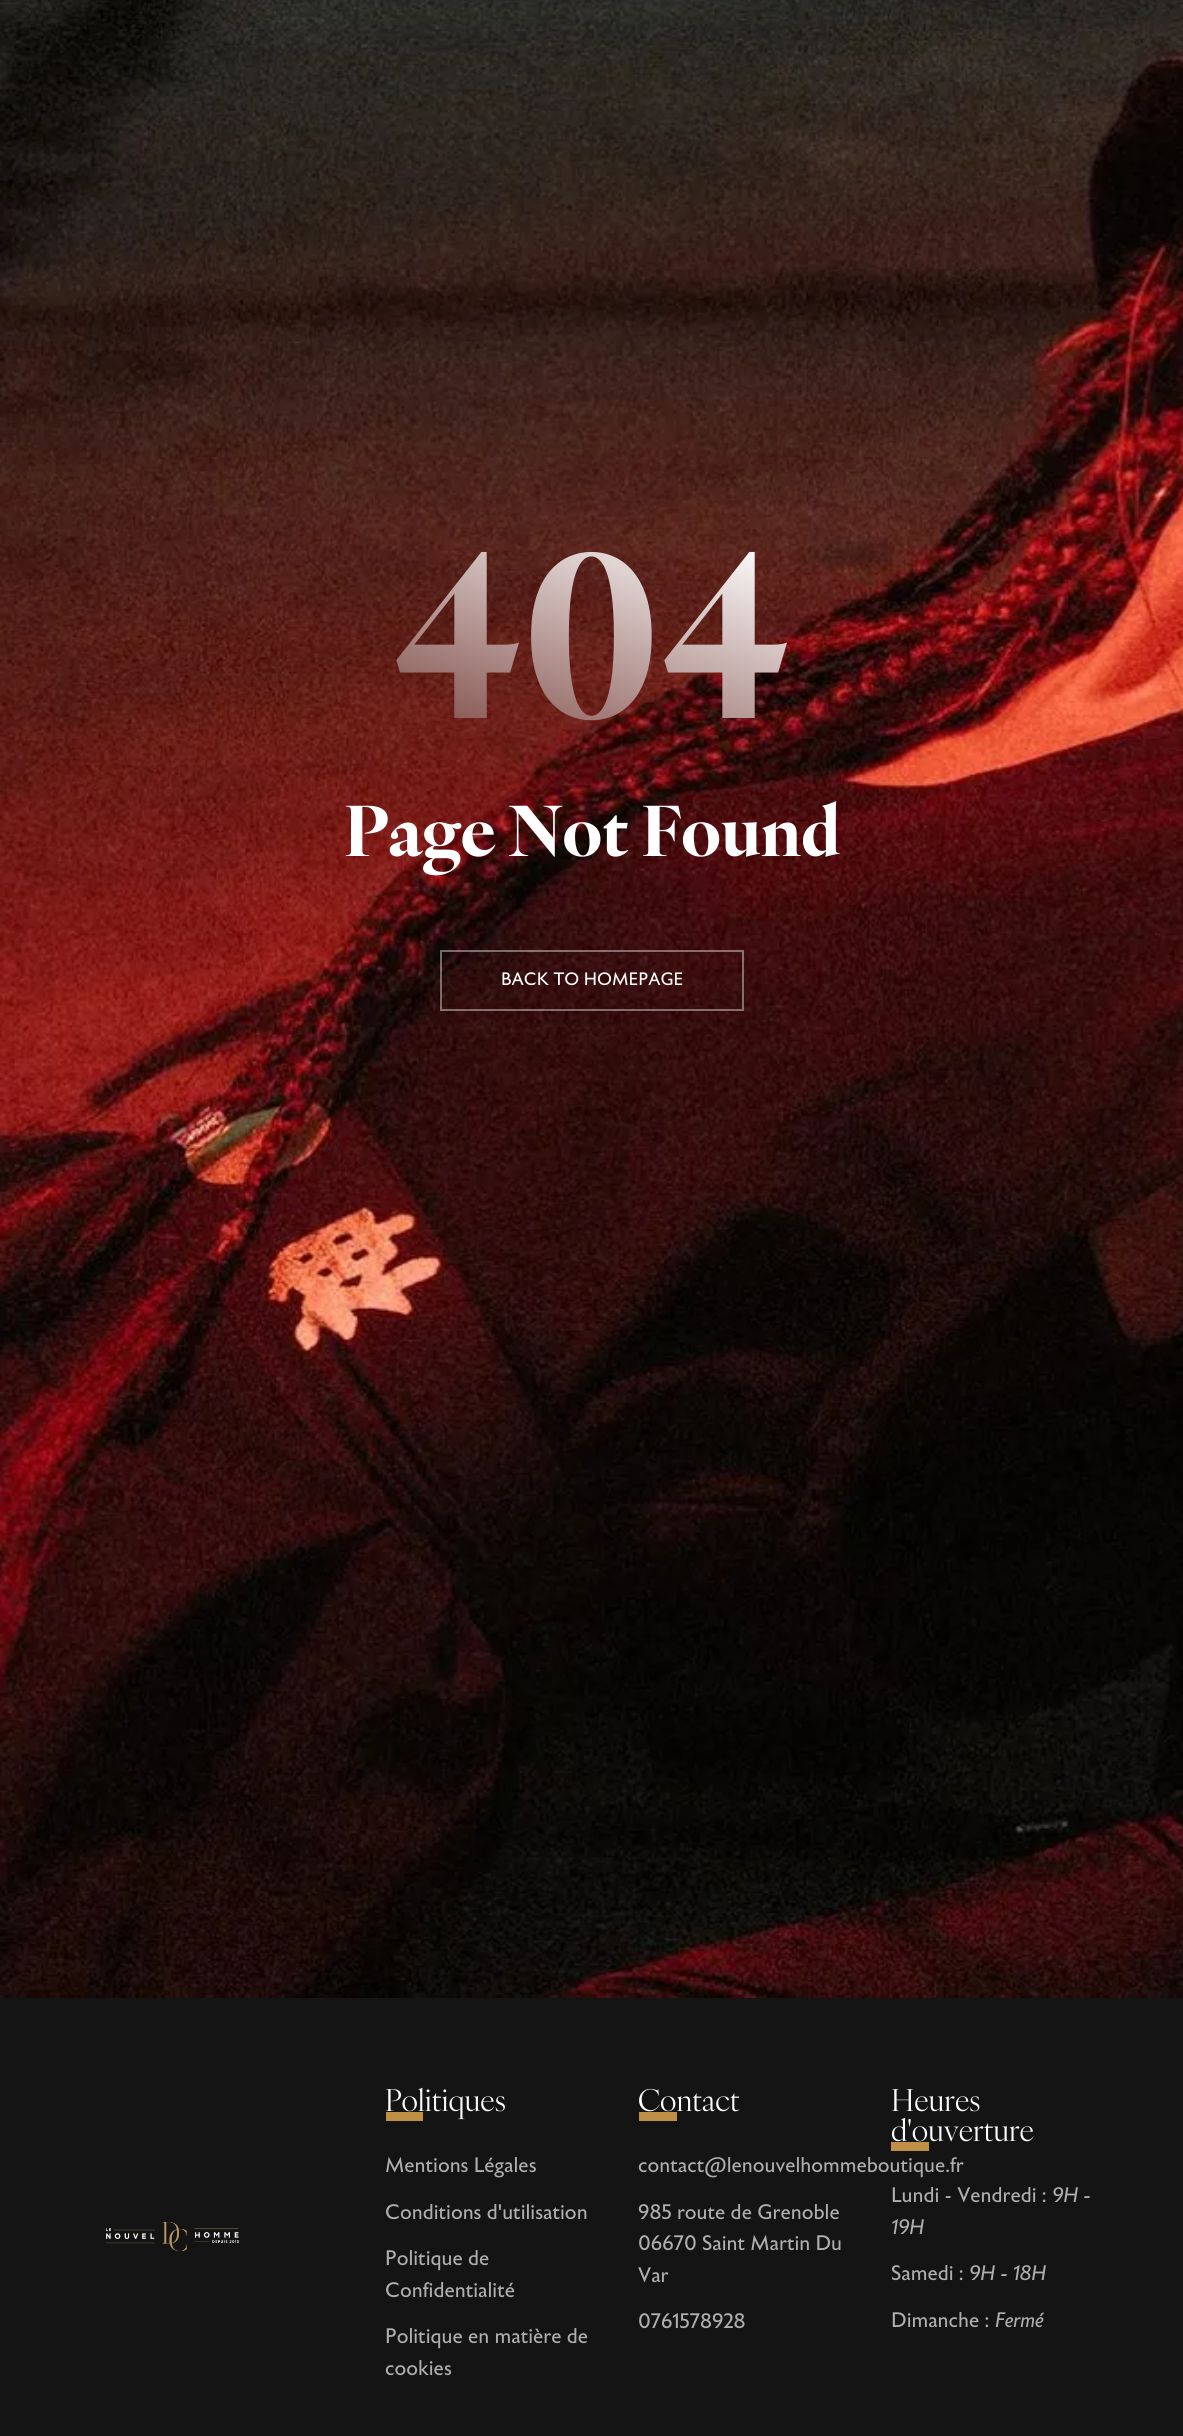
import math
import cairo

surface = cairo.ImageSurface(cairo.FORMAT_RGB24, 1183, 2436)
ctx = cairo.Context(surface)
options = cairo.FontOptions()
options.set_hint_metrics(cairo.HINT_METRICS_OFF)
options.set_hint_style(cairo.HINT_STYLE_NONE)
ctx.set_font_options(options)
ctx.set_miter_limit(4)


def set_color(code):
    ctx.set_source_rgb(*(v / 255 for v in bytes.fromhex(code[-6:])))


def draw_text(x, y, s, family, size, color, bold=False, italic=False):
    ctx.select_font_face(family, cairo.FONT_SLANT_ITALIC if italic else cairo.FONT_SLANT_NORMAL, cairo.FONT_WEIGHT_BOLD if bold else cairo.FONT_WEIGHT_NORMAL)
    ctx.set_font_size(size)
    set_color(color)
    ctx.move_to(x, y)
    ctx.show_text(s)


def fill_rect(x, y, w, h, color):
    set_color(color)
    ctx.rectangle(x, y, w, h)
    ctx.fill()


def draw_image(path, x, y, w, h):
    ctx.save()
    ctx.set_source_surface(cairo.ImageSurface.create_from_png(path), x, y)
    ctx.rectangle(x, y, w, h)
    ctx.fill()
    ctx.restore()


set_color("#ffffff")
ctx.paint()
draw_image("assets/img1.png", 0, 0, 1183, 1998)
ctx.select_font_face("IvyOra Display", cairo.FONT_SLANT_NORMAL, cairo.FONT_WEIGHT_BOLD)
ctx.set_font_size(225)
gradient = cairo.LinearGradient(520, 858, 651, 499)
gradient.add_color_stop_rgba(0, 0.369, 0.118, 0.094, 1)
gradient.add_color_stop_rgba(1, 1, 1, 1, 1)
ctx.set_source(gradient)
ctx.move_to(392, 718)
ctx.show_text("404")
draw_text(344, 856, "Page Not Found", "IvyOra Display", 69, "#ffffff", bold=True)
ctx.rectangle(441, 951, 302, 59)
ctx.set_source_rgba(1, 1, 1, 0.4)
ctx.stroke()
draw_text(501, 985, "BACK TO HOMEPAGE", "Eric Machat", 18, "#ffffff")
fill_rect(0, 1998, 1183, 438, "#141414")
draw_image("assets/img2.png", 106, 2222, 133, 29)
fill_rect(386, 2112, 37, 9, "#be8f45")
draw_text(385, 2111, "Politiques", "IvyOra Display", 30, "#ffffff")
draw_text(385, 2172, "Mentions Légales", "Eric Machat", 21, "#aeaeae")
draw_text(385, 2219, "Conditions d'utilisation", "Eric Machat", 21, "#aeaeae")
draw_text(385, 2265, "Politique de", "Eric Machat", 21, "#aeaeae")
draw_text(385, 2297, "Confidentialité", "Eric Machat", 21, "#aeaeae")
draw_text(385, 2343, "Politique en matière de", "Eric Machat", 21, "#aeaeae")
draw_text(385, 2375, "cookies", "Eric Machat", 21, "#aeaeae")
draw_text(638, 2111, "Contact", "IvyOra Display", 30, "#ffffff")
fill_rect(639, 2112, 38, 9, "#be8f45")
draw_text(638, 2172, "contact@lenouvelhommeboutique.fr", "Eric Machat", 21, "#aeaeae")
draw_text(638, 2219, "985 route de Grenoble", "Eric Machat", 21, "#aeaeae")
draw_text(638, 2250, "06670 Saint Martin Du", "Eric Machat", 21, "#aeaeae")
draw_text(638, 2282, "Var", "Eric Machat", 21, "#aeaeae")
draw_text(638, 2328, "0761578928", "Eric Machat", 21, "#aeaeae")
draw_text(891, 2111, "Heures", "IvyOra Display", 30, "#ffffff")
draw_text(891, 2141, "d'ouverture", "IvyOra Display", 30, "#ffffff")
fill_rect(891, 2142, 38, 9, "#be8f45")
draw_text(891, 2202, "Lundi - Vendredi :", "Eric Machat", 21, "#aeaeae")
draw_text(1052, 2202, "9H -", "Eric Machat", 21, "#aeaeae", italic=True)
draw_text(891, 2234, "19H", "Eric Machat", 21, "#aeaeae", italic=True)
draw_text(891, 2280, "Samedi :", "Eric Machat", 21, "#aeaeae")
draw_text(969, 2280, "9H - 18H", "Eric Machat", 21, "#aeaeae", italic=True)
draw_text(891, 2327, "Dimanche :", "Eric Machat", 21, "#aeaeae")
draw_text(995, 2327, "Fermé", "Eric Machat", 21, "#aeaeae", italic=True)
surface.write_to_png("output.png")
